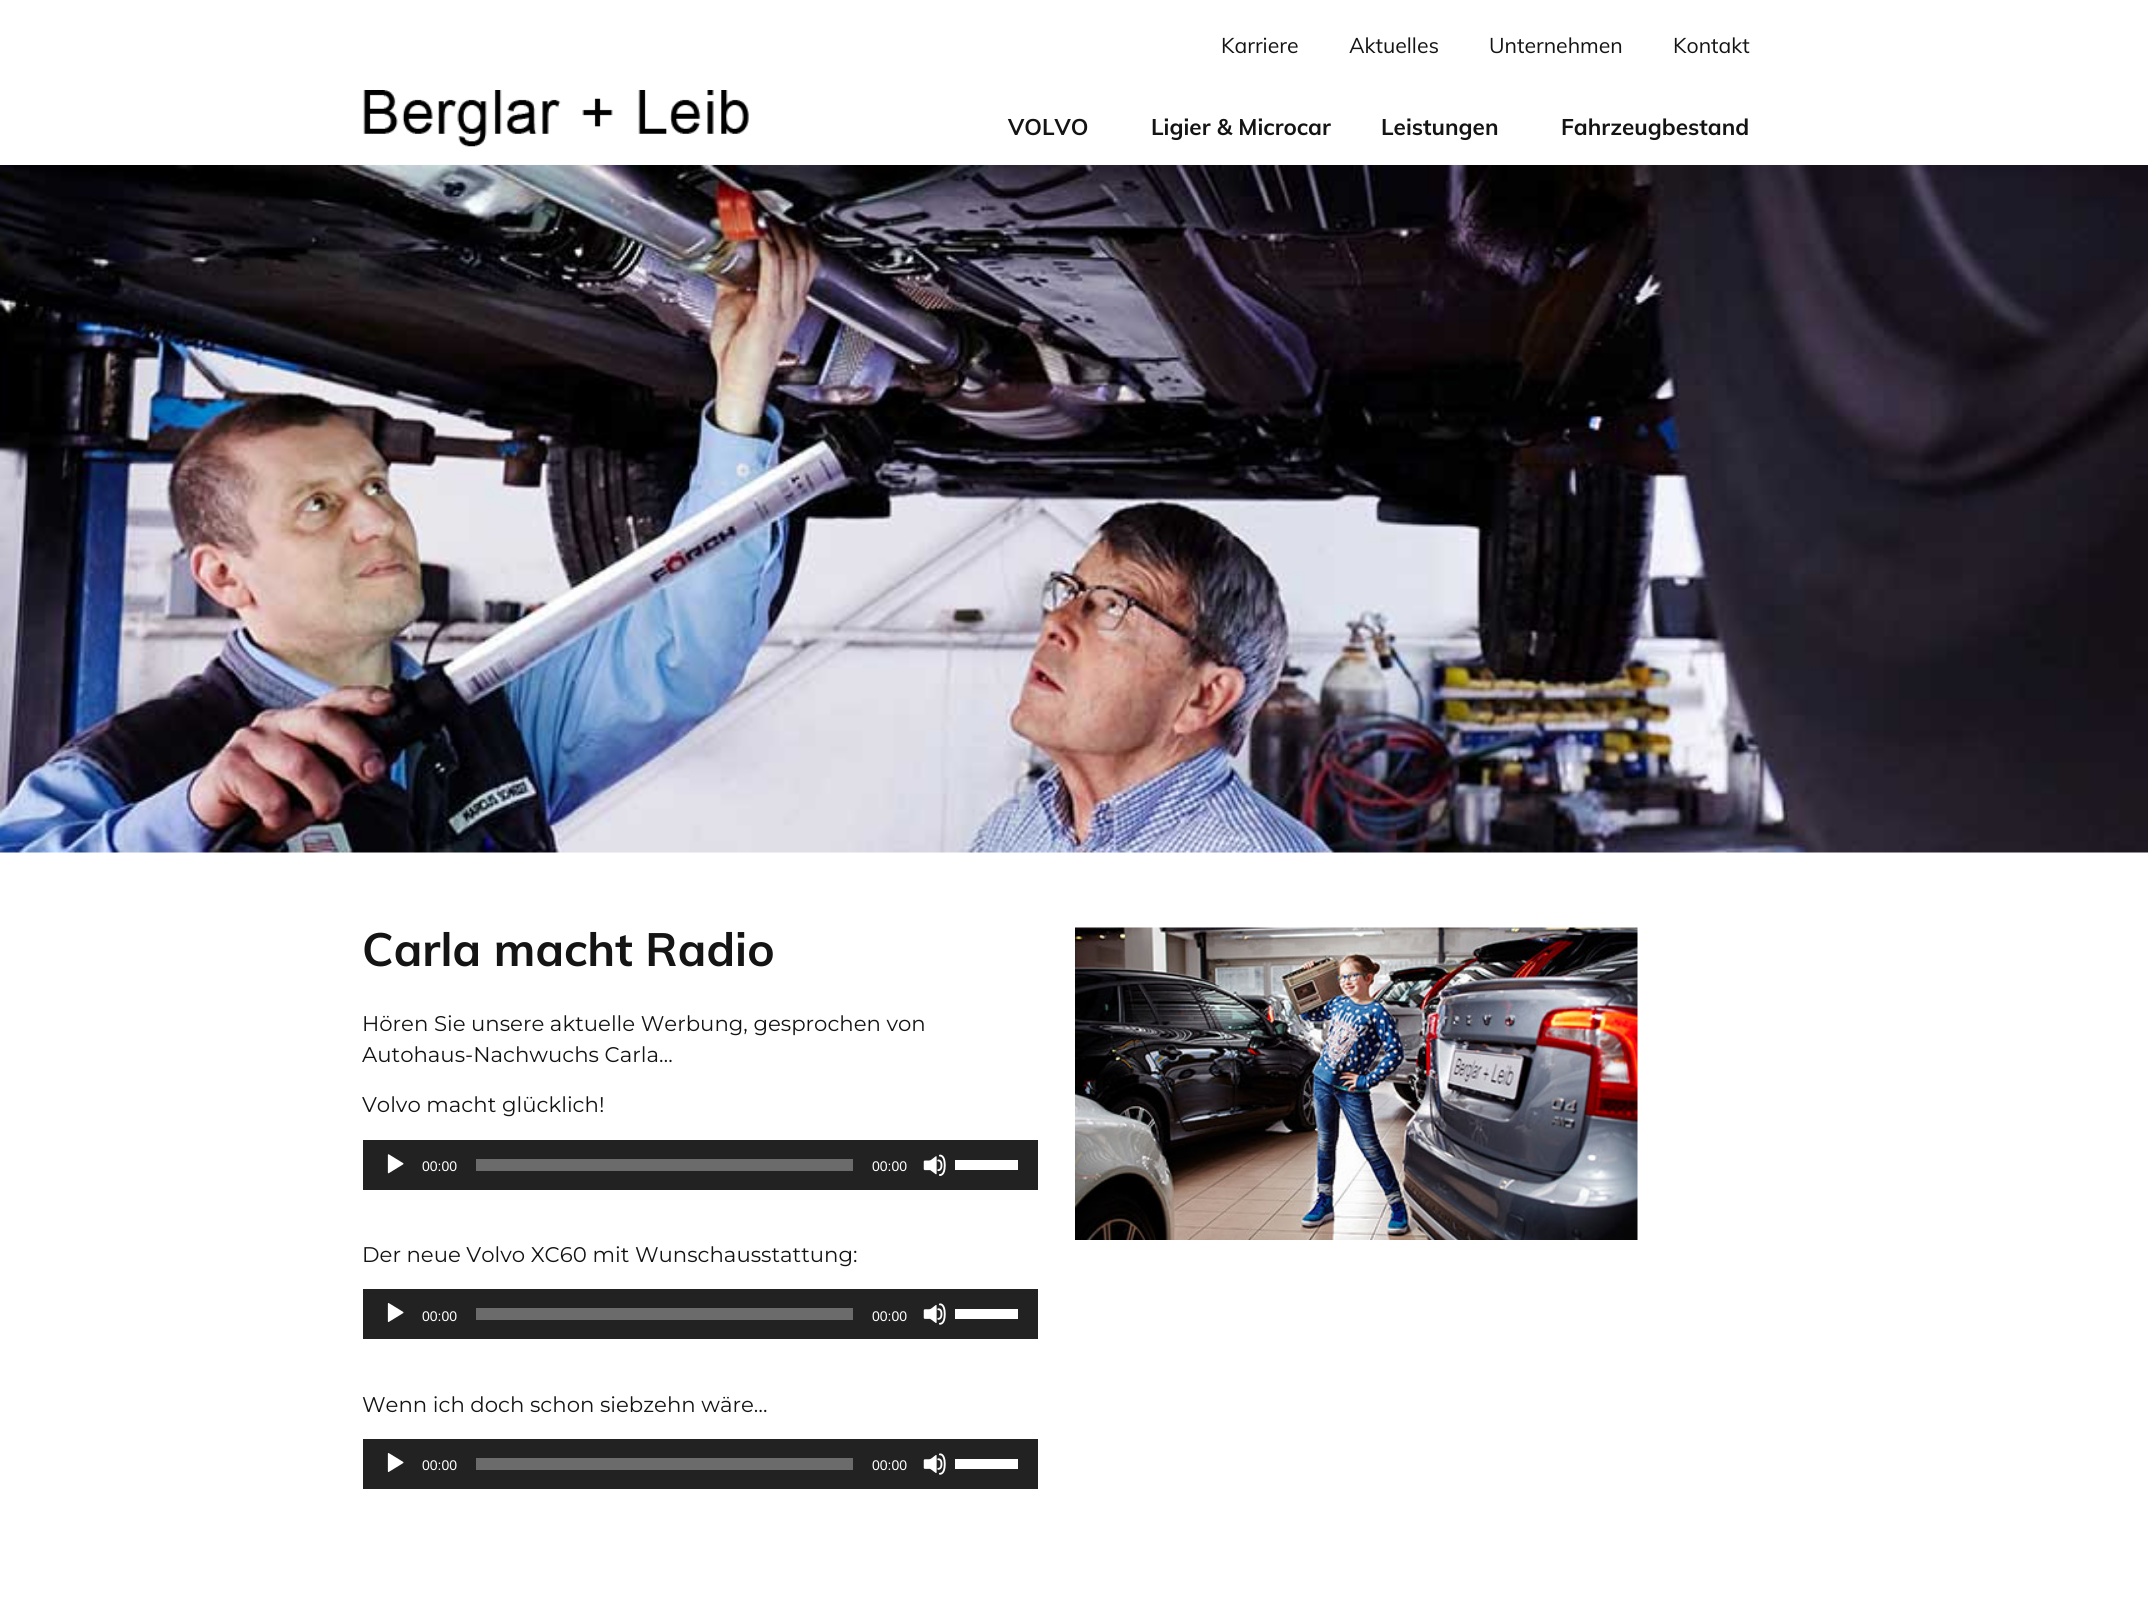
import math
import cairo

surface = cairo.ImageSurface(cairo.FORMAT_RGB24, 2148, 1602)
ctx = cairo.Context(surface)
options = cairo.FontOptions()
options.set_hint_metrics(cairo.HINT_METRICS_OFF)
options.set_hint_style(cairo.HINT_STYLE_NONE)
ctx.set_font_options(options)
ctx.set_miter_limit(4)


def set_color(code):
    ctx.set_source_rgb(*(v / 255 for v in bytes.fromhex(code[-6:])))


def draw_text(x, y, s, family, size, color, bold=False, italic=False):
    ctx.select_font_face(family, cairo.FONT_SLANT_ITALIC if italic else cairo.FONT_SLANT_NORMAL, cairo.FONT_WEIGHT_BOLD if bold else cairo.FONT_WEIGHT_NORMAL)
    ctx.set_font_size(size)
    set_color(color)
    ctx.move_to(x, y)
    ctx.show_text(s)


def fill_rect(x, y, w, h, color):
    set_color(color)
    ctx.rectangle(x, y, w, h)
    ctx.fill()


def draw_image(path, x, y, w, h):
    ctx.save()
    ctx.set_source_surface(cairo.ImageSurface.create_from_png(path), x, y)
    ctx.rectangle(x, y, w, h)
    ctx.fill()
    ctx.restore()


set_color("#ffffff")
ctx.paint()
draw_image("assets/img1.png", 363, 90, 386, 57)
draw_text(1221, 53, "Karriere", "Muli", 21.25, "#141414")
draw_text(1349, 53, "Aktuelles", "Muli", 21.25, "#141414")
draw_text(1489, 53, "Unternehmen", "Muli", 21.25, "#141414")
draw_text(1673, 53, "Kontakt", "Muli", 21.25, "#141414")
draw_text(1008, 135, "VOLVO", "Muli", 22.5, "#141414", bold=True)
draw_text(1151, 135, "Ligier & Microcar", "Muli", 22.5, "#141414", bold=True)
draw_text(1381, 135, "Leistungen", "Muli", 22.5, "#141414", bold=True)
draw_text(1561, 135, "Fahrzeugbestand", "Muli", 22.5, "#141414", bold=True)
draw_image("assets/img2.png", 0, 165, 2148, 688)
draw_text(362, 966, "Carla macht Radio", "Muli", 46.25, "#141414", bold=True)
draw_text(362, 1031, "Hören Sie unsere aktuelle Werbung, gesprochen von", "Montserrat Thin", 21.25, "#141414")
draw_text(362, 1062, "Autohaus-Nachwuchs Carla…", "Montserrat Thin", 21.25, "#141414")
draw_text(362, 1112, "Volvo macht glücklich!", "Montserrat Thin", 21.25, "#141414")
fill_rect(363, 1140, 675, 50, "#222222")
draw_image("assets/img3.png", 387, 1154, 17, 20)
draw_text(422, 1171, "00:00", "Liberation Sans", 14, "#ffffff")
fill_rect(476, 1159, 377, 12, "#6b6b6b")
draw_text(872, 1171, "00:00", "Liberation Sans", 14, "#ffffff")
draw_image("assets/img4.png", 923, 1154, 23, 22)
fill_rect(955, 1160, 63, 10, "#ffffff")
draw_text(362, 1262, "Der neue Volvo XC60 mit Wunschausstattung:", "Montserrat Thin", 21.25, "#141414")
fill_rect(363, 1289, 675, 50, "#222222")
draw_image("assets/img5.png", 387, 1303, 17, 19)
draw_text(422, 1321, "00:00", "Liberation Sans", 14, "#ffffff")
fill_rect(476, 1308, 377, 12, "#6b6b6b")
draw_text(872, 1321, "00:00", "Liberation Sans", 14, "#ffffff")
draw_image("assets/img6.png", 923, 1303, 23, 22)
fill_rect(955, 1309, 63, 10, "#ffffff")
draw_text(362, 1412, "Wenn ich doch schon siebzehn wäre…", "Montserrat Thin", 21.25, "#141414")
fill_rect(363, 1439, 675, 50, "#222222")
draw_image("assets/img5.png", 387, 1453, 17, 19)
draw_text(422, 1470, "00:00", "Liberation Sans", 14, "#ffffff")
fill_rect(476, 1458, 377, 12, "#6b6b6b")
draw_text(872, 1470, "00:00", "Liberation Sans", 14, "#ffffff")
draw_image("assets/img6.png", 923, 1453, 23, 22)
fill_rect(955, 1459, 63, 10, "#ffffff")
draw_image("assets/img7.png", 1075, 927, 563, 313)
surface.write_to_png("output.png")
